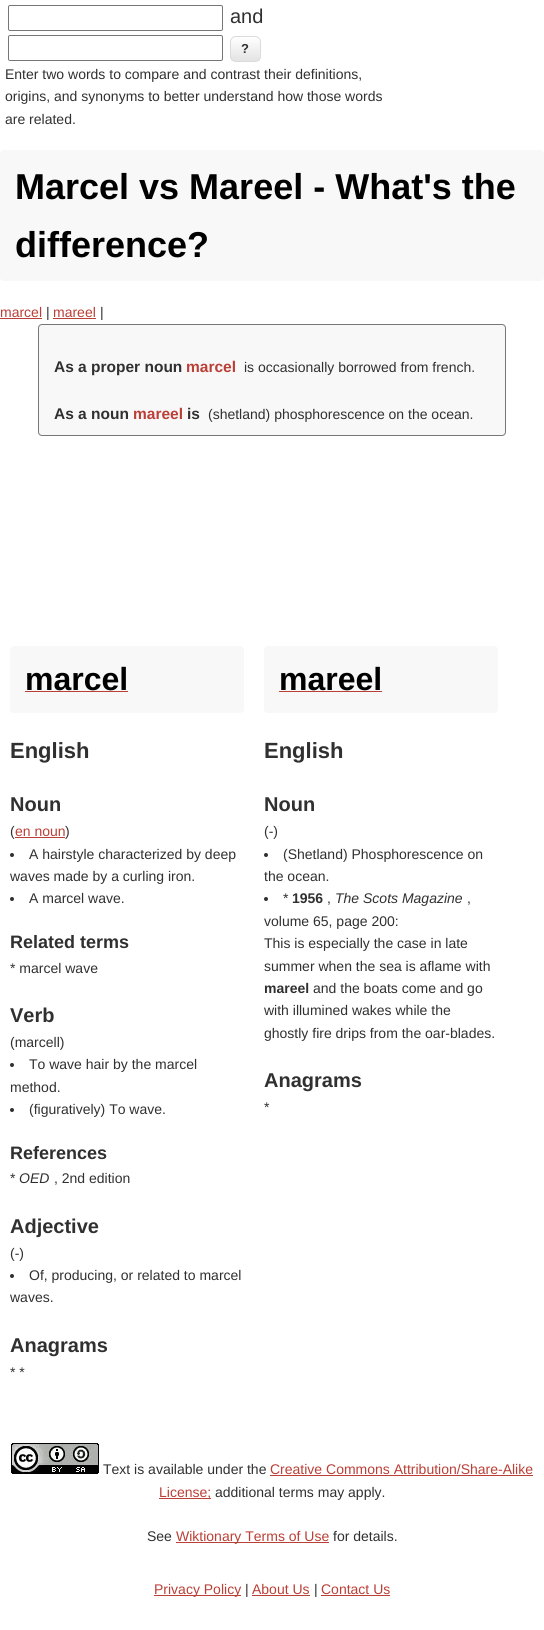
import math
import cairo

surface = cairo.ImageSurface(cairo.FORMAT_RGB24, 544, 1630)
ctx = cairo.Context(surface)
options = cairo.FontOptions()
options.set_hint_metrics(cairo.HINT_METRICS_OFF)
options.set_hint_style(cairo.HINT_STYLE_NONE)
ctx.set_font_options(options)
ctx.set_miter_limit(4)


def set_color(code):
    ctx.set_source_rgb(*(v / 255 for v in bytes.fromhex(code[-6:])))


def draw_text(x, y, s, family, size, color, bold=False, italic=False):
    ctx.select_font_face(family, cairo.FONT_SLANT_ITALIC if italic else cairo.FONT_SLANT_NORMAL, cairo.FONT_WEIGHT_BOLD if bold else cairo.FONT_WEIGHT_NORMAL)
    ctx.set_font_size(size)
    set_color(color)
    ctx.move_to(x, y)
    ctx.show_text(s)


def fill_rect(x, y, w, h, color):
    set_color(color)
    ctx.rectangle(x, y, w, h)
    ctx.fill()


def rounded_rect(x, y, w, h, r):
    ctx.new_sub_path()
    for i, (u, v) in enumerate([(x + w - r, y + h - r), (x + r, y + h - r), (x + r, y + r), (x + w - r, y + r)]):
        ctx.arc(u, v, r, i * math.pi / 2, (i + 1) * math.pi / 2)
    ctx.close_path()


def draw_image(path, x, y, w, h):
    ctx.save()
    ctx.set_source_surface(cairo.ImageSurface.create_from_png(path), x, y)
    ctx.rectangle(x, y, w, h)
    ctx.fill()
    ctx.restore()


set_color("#ffffff")
ctx.paint()
rounded_rect(8.5, 5.5, 214, 25, 1.5)
set_color("#767676")
ctx.set_line_width(1)
ctx.stroke()
draw_text(230, 23, "and", "Liberation Sans", 20, "#303030")
rounded_rect(8.5, 35.5, 214, 25, 1.5)
set_color("#767676")
ctx.stroke()
ctx.save()
rounded_rect(230, 36, 31, 26, 6)
ctx.clip()
gradient = cairo.LinearGradient(246, 37, 246, 61)
gradient.add_color_stop_rgba(0, 1, 1, 1, 1)
gradient.add_color_stop_rgba(1, 0.89, 0.89, 0.89, 1)
ctx.set_source(gradient)
ctx.rectangle(230, 37, 31, 24)
ctx.fill()
ctx.restore()
set_color("#ffffff")
ctx.set_fill_rule(cairo.FILL_RULE_EVEN_ODD)
ctx.new_path()
ctx.move_to(236, 38)
ctx.line_to(252, 38)
ctx.curve_to(257.5, 38, 259.5, 40, 260, 43)
ctx.curve_to(260, 37.5, 257, 37, 252, 37)
ctx.line_to(239, 37)
ctx.curve_to(232.5, 37, 231, 38, 231, 44.5)
ctx.curve_to(231, 41, 232, 38, 236, 38)
ctx.close_path()
ctx.move_to(260, 52)
ctx.curve_to(260, 54, 260, 56.5, 259.5, 58.5)
ctx.curve_to(260.5, 56.5, 260, 54, 260, 52)
ctx.close_path()
ctx.fill()
rounded_rect(230.5, 36.5, 30, 25, 5.5)
set_color("#dbdbdb")
ctx.stroke()
draw_text(241, 53, "?", "Liberation Sans", 13, "#303030", bold=True)
draw_text(5, 79, "Enter two words to compare and contrast their definitions,", "Liberation Sans", 14, "#303030")
draw_text(5, 101, "origins, and synonyms to better understand how those words", "Liberation Sans", 14, "#303030")
draw_text(5, 124, "are related.", "Liberation Sans", 14, "#303030")
set_color("#f8f8f8")
rounded_rect(0, 150, 544, 131, 4)
ctx.fill()
draw_text(15, 199, "Marcel vs Mareel - What's the", "Liberation Sans", 36, "#000000", bold=True)
draw_text(15, 257, "difference?", "Liberation Sans", 36, "#000000", bold=True)
draw_text(0, 317, "marcel", "Liberation Sans", 14, "#ba3f36")
fill_rect(0, 318, 42, 1, "#ba3f36")
draw_text(46, 317, "|", "Liberation Sans", 14, "#303030")
draw_text(53, 317, "mareel", "Liberation Sans", 14, "#ba3f36")
fill_rect(53, 318, 43, 1, "#ba3f36")
draw_text(100, 317, "|", "Liberation Sans", 14, "#303030")
set_color("#f8f8f8")
rounded_rect(38.5, 324.5, 467, 111, 3.5)
ctx.fill_preserve()
set_color("#777777")
ctx.stroke()
draw_text(54, 372, "As a proper noun", "Liberation Sans", 15.5, "#303030", bold=True)
draw_text(186, 372, "marcel", "Liberation Sans", 15.5, "#ba3f36", bold=True)
draw_text(244, 372, "is occasionally borrowed from french.", "Liberation Sans", 14, "#303030")
draw_text(54, 419, "As a noun", "Liberation Sans", 15.5, "#303030", bold=True)
draw_text(133, 419, "mareel", "Liberation Sans", 15.5, "#ba3f36", bold=True)
draw_text(187, 419, "is", "Liberation Sans", 15.5, "#303030", bold=True)
draw_text(208, 419, "(shetland) phosphorescence on the ocean.", "Liberation Sans", 14, "#303030")
set_color("#f8f8f8")
rounded_rect(10, 646, 234, 67, 4)
ctx.fill()
draw_text(25, 690, "marcel", "Liberation Sans", 32, "#000000", bold=True)
fill_rect(25, 691, 103, 1, "#ba3f36")
draw_text(10, 758, "English", "Liberation Sans", 22, "#303030", bold=True)
draw_text(10, 811, "Noun", "Liberation Sans", 20, "#303030", bold=True)
draw_text(10, 836, "(", "Liberation Sans", 14, "#303030")
draw_text(15, 836, "en noun", "Liberation Sans", 14, "#ba3f36")
fill_rect(15, 837, 50, 1, "#ba3f36")
draw_text(65, 836, ")", "Liberation Sans", 14, "#303030")
ctx.new_path()
ctx.arc(12, 855, 2, 0, 2 * math.pi)
ctx.fill()
draw_text(29, 859, "A hairstyle characterized by deep", "Liberation Sans", 14, "#303030")
draw_text(10, 881, "waves made by a curling iron.", "Liberation Sans", 14, "#303030")
ctx.new_path()
ctx.arc(12, 899, 2, 0, 2 * math.pi)
ctx.fill()
draw_text(29, 903, "A marcel wave.", "Liberation Sans", 14, "#303030")
draw_text(10, 948, "Related terms", "Liberation Sans", 18, "#303030", bold=True)
draw_text(10, 973, "* marcel wave", "Liberation Sans", 14, "#303030")
draw_text(10, 1022, "Verb", "Liberation Sans", 20, "#303030", bold=True)
draw_text(10, 1047, "(marcell)", "Liberation Sans", 14, "#303030")
ctx.new_path()
ctx.arc(12, 1065, 2, 0, 2 * math.pi)
ctx.fill()
draw_text(29, 1069, "To wave hair by the marcel", "Liberation Sans", 14, "#303030")
draw_text(10, 1092, "method.", "Liberation Sans", 14, "#303030")
ctx.new_path()
ctx.arc(12, 1110, 2, 0, 2 * math.pi)
ctx.fill()
draw_text(29, 1114, "(figuratively) To wave.", "Liberation Sans", 14, "#303030")
draw_text(10, 1159, "References", "Liberation Sans", 18, "#303030", bold=True)
draw_text(10, 1183, "*", "Liberation Sans", 14, "#303030")
draw_text(19, 1183, "OED", "Liberation Sans", 14, "#303030", italic=True)
draw_text(54, 1183, ", 2nd edition", "Liberation Sans", 14, "#303030")
draw_text(10, 1233, "Adjective", "Liberation Sans", 20, "#303030", bold=True)
draw_text(10, 1258, "(-)", "Liberation Sans", 14, "#303030")
ctx.new_path()
ctx.arc(12, 1276, 2, 0, 2 * math.pi)
ctx.fill()
draw_text(29, 1280, "Of, producing, or related to marcel", "Liberation Sans", 14, "#303030")
draw_text(10, 1302, "waves.", "Liberation Sans", 14, "#303030")
draw_text(10, 1352, "Anagrams", "Liberation Sans", 20, "#303030", bold=True)
draw_text(10, 1377, "* *", "Liberation Sans", 14, "#303030")
set_color("#f8f8f8")
rounded_rect(264, 646, 234, 67, 4)
ctx.fill()
draw_text(279, 690, "mareel", "Liberation Sans", 32, "#000000", bold=True)
fill_rect(279, 691, 103, 1, "#ba3f36")
draw_text(264, 758, "English", "Liberation Sans", 22, "#303030", bold=True)
draw_text(264, 811, "Noun", "Liberation Sans", 20, "#303030", bold=True)
draw_text(264, 836, "(-)", "Liberation Sans", 14, "#303030")
ctx.new_path()
ctx.arc(266, 855, 2, 0, 2 * math.pi)
ctx.fill()
draw_text(283, 859, "(Shetland) Phosphorescence on", "Liberation Sans", 14, "#303030")
draw_text(264, 881, "the ocean.", "Liberation Sans", 14, "#303030")
ctx.new_path()
ctx.arc(266, 899, 2, 0, 2 * math.pi)
ctx.fill()
draw_text(283, 903, "*", "Liberation Sans", 14, "#303030")
draw_text(292, 903, "1956", "Liberation Sans", 14, "#303030", bold=True)
draw_text(335, 903, "The Scots Magazine", "Liberation Sans", 14, "#303030", italic=True)
draw_text(327, 903, ",", "Liberation Sans", 14, "#303030")
draw_text(467, 903, ",", "Liberation Sans", 14, "#303030")
draw_text(264, 926, "volume 65, page 200:", "Liberation Sans", 14, "#303030")
draw_text(264, 948, "This is especially the case in late", "Liberation Sans", 14, "#303030")
draw_text(264, 971, "summer when the sea is aflame with", "Liberation Sans", 14, "#303030")
draw_text(264, 993, "mareel", "Liberation Sans", 14, "#303030", bold=True)
draw_text(313, 993, "and the boats come and go", "Liberation Sans", 14, "#303030")
draw_text(264, 1015, "with illumined wakes while the", "Liberation Sans", 14, "#303030")
draw_text(264, 1038, "ghostly fire drips from the oar-blades.", "Liberation Sans", 14, "#303030")
draw_text(264, 1087, "Anagrams", "Liberation Sans", 20, "#303030", bold=True)
draw_text(264, 1112, "*", "Liberation Sans", 14, "#303030")
draw_image("assets/img1.png", 11, 1443, 88, 31)
draw_text(103, 1474, "Text is available under the", "Liberation Sans", 14, "#303030")
draw_text(270, 1474, "Creative Commons Attribution/Share-Alike", "Liberation Sans", 14, "#ba3f36")
fill_rect(270, 1475, 263, 1, "#ba3f36")
fill_rect(159, 1498, 52, 1, "#ba3f36")
draw_text(159, 1497, "License;", "Liberation Sans", 14, "#ba3f36")
draw_text(215, 1497, "additional terms may apply.", "Liberation Sans", 14, "#303030")
draw_text(147, 1541, "See", "Liberation Sans", 14, "#303030")
fill_rect(176, 1542, 153, 1, "#ba3f36")
draw_text(176, 1541, "Wiktionary Terms of Use", "Liberation Sans", 14, "#ba3f36")
draw_text(333, 1541, "for details.", "Liberation Sans", 14, "#303030")
fill_rect(154, 1595, 87, 1, "#ba3f36")
draw_text(154, 1594, "Privacy Policy", "Liberation Sans", 14, "#ba3f36")
draw_text(245, 1594, "|", "Liberation Sans", 14, "#303030")
draw_text(252, 1594, "About Us", "Liberation Sans", 14, "#ba3f36")
fill_rect(252, 1595, 58, 1, "#ba3f36")
draw_text(314, 1594, "|", "Liberation Sans", 14, "#303030")
draw_text(321, 1594, "Contact Us", "Liberation Sans", 14, "#ba3f36")
fill_rect(321, 1595, 69, 1, "#ba3f36")
surface.write_to_png("output.png")
